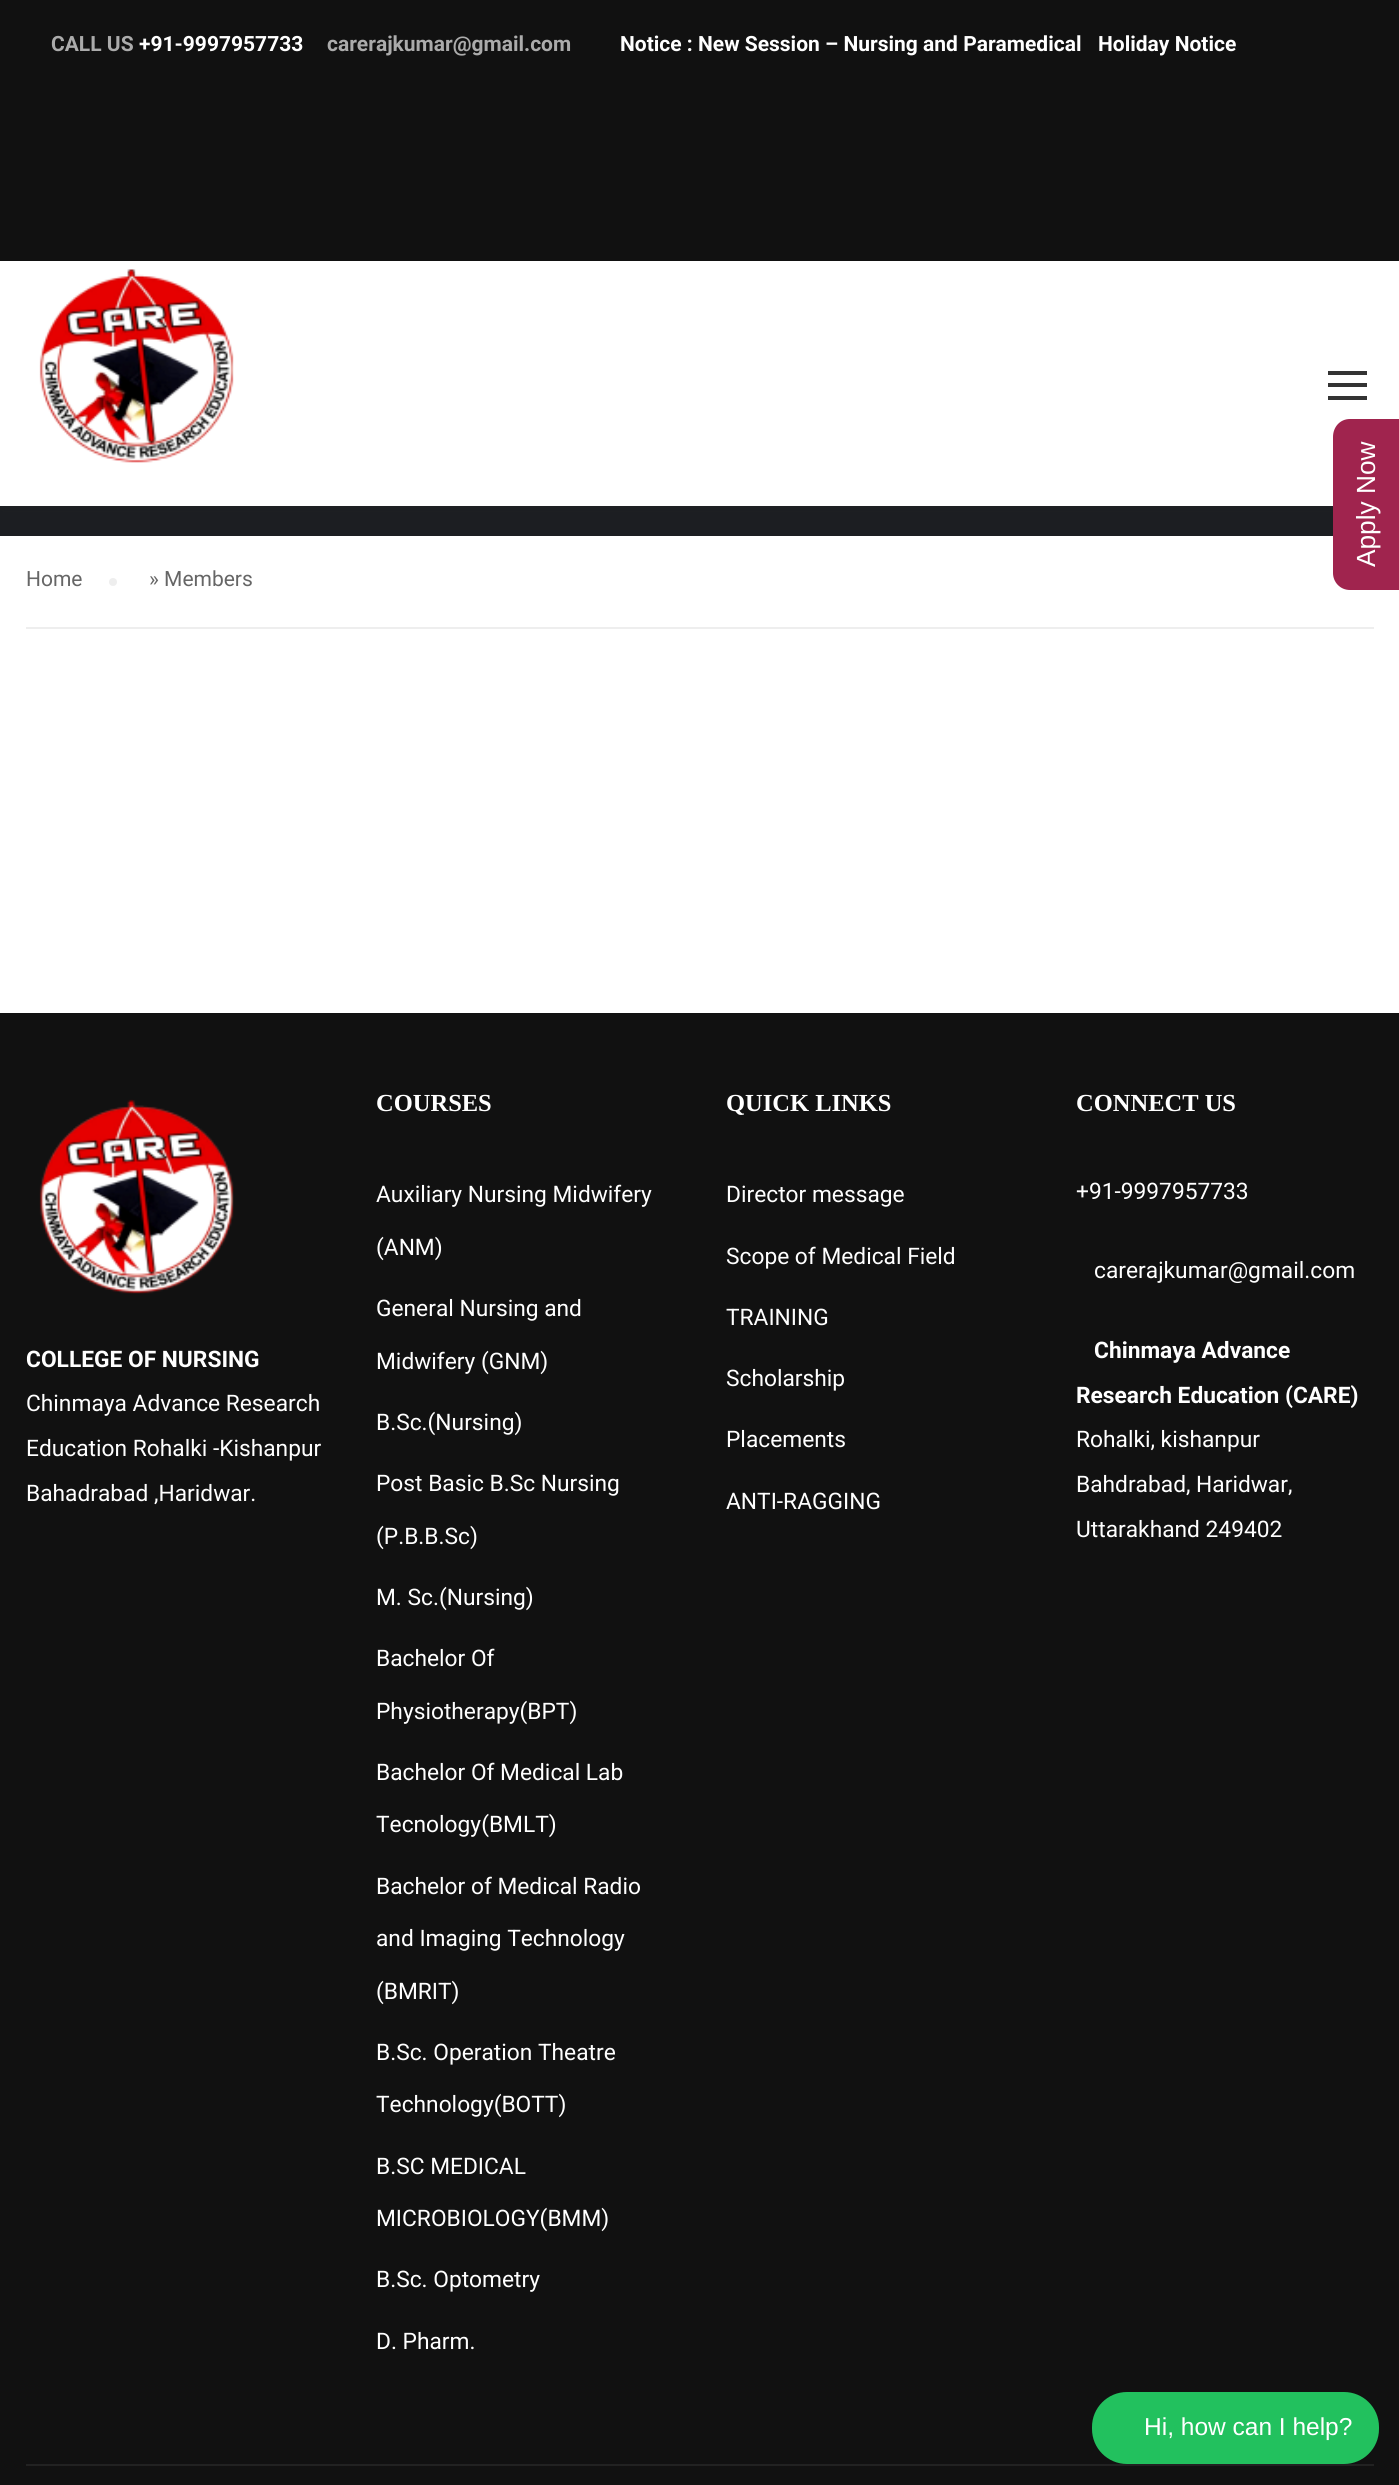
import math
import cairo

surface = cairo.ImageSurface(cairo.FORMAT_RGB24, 1399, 2485)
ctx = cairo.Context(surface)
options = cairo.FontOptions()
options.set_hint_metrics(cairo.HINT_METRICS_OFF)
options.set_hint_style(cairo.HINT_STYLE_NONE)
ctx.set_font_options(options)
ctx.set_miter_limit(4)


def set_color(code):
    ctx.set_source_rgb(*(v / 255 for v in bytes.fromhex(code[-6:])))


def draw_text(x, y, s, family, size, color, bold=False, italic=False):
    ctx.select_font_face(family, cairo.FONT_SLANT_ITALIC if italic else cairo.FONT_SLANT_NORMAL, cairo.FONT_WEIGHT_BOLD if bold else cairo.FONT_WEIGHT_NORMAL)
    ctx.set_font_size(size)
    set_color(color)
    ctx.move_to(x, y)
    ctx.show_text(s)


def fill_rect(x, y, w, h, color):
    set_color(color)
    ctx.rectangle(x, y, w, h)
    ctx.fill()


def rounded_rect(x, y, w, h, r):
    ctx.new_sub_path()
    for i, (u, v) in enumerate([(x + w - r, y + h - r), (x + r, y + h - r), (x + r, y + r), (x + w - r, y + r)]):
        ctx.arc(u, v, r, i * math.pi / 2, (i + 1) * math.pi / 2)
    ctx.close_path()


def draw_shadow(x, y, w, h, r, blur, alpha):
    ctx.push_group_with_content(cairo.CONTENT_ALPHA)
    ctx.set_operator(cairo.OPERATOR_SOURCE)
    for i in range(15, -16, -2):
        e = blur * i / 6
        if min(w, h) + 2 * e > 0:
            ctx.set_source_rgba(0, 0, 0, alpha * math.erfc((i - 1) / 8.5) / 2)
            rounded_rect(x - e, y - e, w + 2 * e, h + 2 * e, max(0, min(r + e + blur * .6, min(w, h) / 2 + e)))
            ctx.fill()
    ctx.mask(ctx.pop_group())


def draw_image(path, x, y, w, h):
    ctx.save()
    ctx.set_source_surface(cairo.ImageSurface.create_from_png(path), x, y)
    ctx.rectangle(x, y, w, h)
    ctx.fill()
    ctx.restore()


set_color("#ffffff")
ctx.paint()
fill_rect(0, 506, 1333, 30, "#1c1e22")
set_color("#2a2a2a")
draw_shadow(4, 5, 1393, 499, 0, 4.5, 0.4)
fill_rect(0, 261, 1399, 245, "#ffffff")
fill_rect(0, 0, 1399, 261, "#111111")
draw_text(51, 51, "CALL US", "Roboto", 21, "#ababab", bold=True)
draw_text(139, 51, "+91-9997957733", "Roboto", 21, "#ffffff", bold=True)
draw_text(327, 51, "carerajkumar@gmail.com", "Roboto", 21, "#ababab", bold=True)
draw_text(620, 51, "Notice : New Session – Nursing and Paramedical", "Roboto", 21, "#ffffff", bold=True)
draw_text(1098, 51, "Holiday Notice", "Roboto", 21, "#ffffff", bold=True)
draw_image("assets/img1.png", 39, 269, 195, 194)
fill_rect(1328, 371, 39, 4, "#333333")
fill_rect(1328, 383, 39, 4, "#333333")
fill_rect(1328, 396, 39, 4, "#333333")
fill_rect(26, 627, 1348, 2, "#eeeeee")
draw_text(26, 586, "Home", "Roboto", 21, "#666666")
set_color("#eeeeee")
ctx.new_path()
ctx.arc(113, 582, 4, 0, 2 * math.pi)
ctx.fill()
draw_text(149, 586, "» Members", "Roboto", 21, "#666666")
fill_rect(0, 1013, 1399, 1472, "#111111")
draw_image("assets/img2.png", 39, 1099, 195, 195)
draw_text(26, 1367, "COLLEGE OF NURSING", "Roboto", 22.75, "#ffffff", bold=True)
draw_text(26, 1411, "Chinmaya Advance Research", "Roboto", 22.75, "#ffffff")
draw_text(26, 1456, "Education Rohalki -Kishanpur", "Roboto", 22.75, "#ffffff")
draw_text(26, 1501, "Bahadrabad ,Haridwar.", "Roboto", 22.75, "#ffffff")
draw_text(376, 1111, "COURSES", "Liberation Serif", 24.5, "#ffffff", bold=True)
draw_text(376, 1202, "Auxiliary Nursing Midwifery", "Roboto", 22.75, "#ffffff")
draw_text(376, 1255, "(ANM)", "Roboto", 22.75, "#ffffff")
draw_text(376, 1316, "General Nursing and", "Roboto", 22.75, "#ffffff")
draw_text(376, 1369, "Midwifery (GNM)", "Roboto", 22.75, "#ffffff")
draw_text(376, 1430, "B.Sc.(Nursing)", "Roboto", 22.75, "#ffffff")
draw_text(376, 1491, "Post Basic B.Sc Nursing", "Roboto", 22.75, "#ffffff")
draw_text(376, 1544, "(P.B.B.Sc)", "Roboto", 22.75, "#ffffff")
draw_text(376, 1605, "M. Sc.(Nursing)", "Roboto", 22.75, "#ffffff")
draw_text(376, 1666, "Bachelor Of", "Roboto", 22.75, "#ffffff")
draw_text(376, 1719, "Physiotherapy(BPT)", "Roboto", 22.75, "#ffffff")
draw_text(376, 1780, "Bachelor Of Medical Lab", "Roboto", 22.75, "#ffffff")
draw_text(376, 1832, "Tecnology(BMLT)", "Roboto", 22.75, "#ffffff")
draw_text(376, 1894, "Bachelor of Medical Radio", "Roboto", 22.75, "#ffffff")
draw_text(376, 1946, "and Imaging Technology", "Roboto", 22.75, "#ffffff")
draw_text(376, 1999, "(BMRIT)", "Roboto", 22.75, "#ffffff")
draw_text(376, 2060, "B.Sc. Operation Theatre", "Roboto", 22.75, "#ffffff")
draw_text(376, 2112, "Technology(BOTT)", "Roboto", 22.75, "#ffffff")
draw_text(376, 2174, "B.SC MEDICAL", "Roboto", 22.75, "#ffffff")
draw_text(376, 2226, "MICROBIOLOGY(BMM)", "Roboto", 22.75, "#ffffff")
draw_text(376, 2287, "B.Sc. Optometry", "Roboto", 22.75, "#ffffff")
draw_text(376, 2349, "D. Pharm.", "Roboto", 22.75, "#ffffff")
draw_text(726, 1111, "QUICK LINKS", "Liberation Serif", 24.5, "#ffffff", bold=True)
draw_text(726, 1202, "Director message", "Roboto", 22.75, "#ffffff")
draw_text(726, 1264, "Scope of Medical Field", "Roboto", 22.75, "#ffffff")
draw_text(726, 1325, "TRAINING", "Roboto", 22.75, "#ffffff")
draw_text(726, 1386, "Scholarship", "Roboto", 22.75, "#ffffff")
draw_text(726, 1447, "Placements", "Roboto", 22.75, "#ffffff")
draw_text(726, 1509, "ANTI-RAGGING", "Roboto", 22.75, "#ffffff")
draw_text(1076, 1111, "CONNECT US", "Liberation Serif", 24.5, "#ffffff", bold=True)
draw_text(1076, 1199, "+91-9997957733", "Roboto", 22.75, "#ffffff")
draw_text(1094, 1278, "carerajkumar@gmail.com", "Roboto", 22.75, "#ffffff")
draw_text(1094, 1358, "Chinmaya Advance", "Roboto", 22.75, "#ffffff", bold=True)
draw_text(1076, 1403, "Research Education (CARE)", "Roboto", 22.75, "#ffffff", bold=True)
draw_text(1076, 1447, "Rohalki, kishanpur", "Roboto", 22.75, "#ffffff")
draw_text(1076, 1492, "Bahdrabad, Haridwar,", "Roboto", 22.75, "#ffffff")
draw_text(1076, 1537, "Uttarakhand 249402", "Roboto", 22.75, "#ffffff")
fill_rect(26, 2464, 1348, 2, "#222222")
set_color("#a0244e")
ctx.new_path()
ctx.move_to(1333, 573)
ctx.line_to(1333, 437)
ctx.curve_to(1333, 427, 1340, 419, 1350, 419)
ctx.line_to(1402, 419)
ctx.line_to(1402, 590)
ctx.line_to(1350, 590)
ctx.curve_to(1340, 590, 1333, 582, 1333, 573)
ctx.close_path()
ctx.fill()
ctx.save()
ctx.translate(1375, 567)
ctx.rotate(-90 * math.pi / 180)
draw_text(0, 0, "Apply Now", "Liberation Sans", 26.25, "#ffffff")
ctx.restore()
set_color("#22c15e")
rounded_rect(1092, 2392, 287, 72, 35)
ctx.fill()
draw_text(1144, 2435, "Hi, how can I help?", "Liberation Sans", 24.5, "#ffffff")
surface.write_to_png("output.png")
